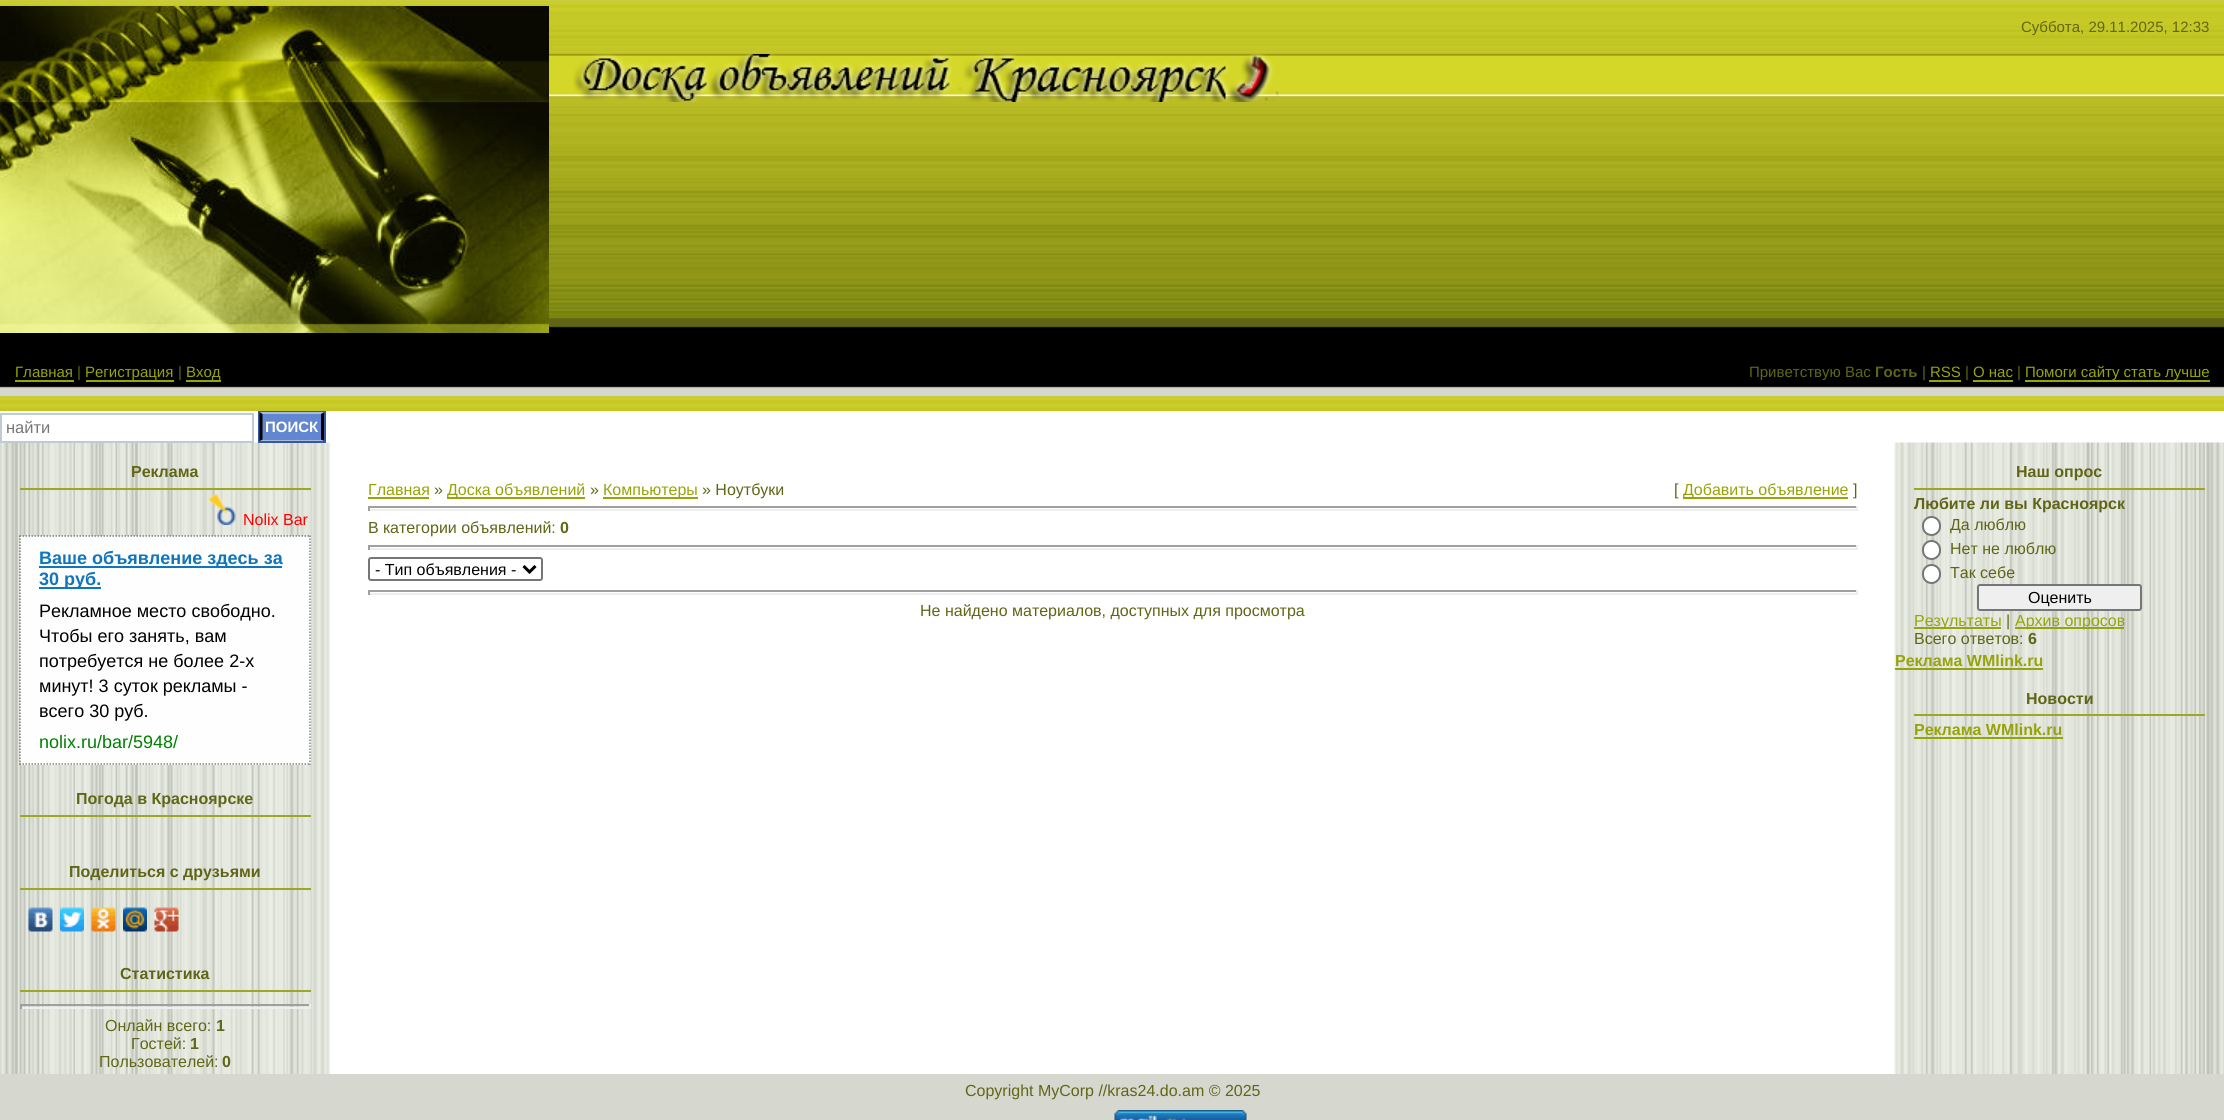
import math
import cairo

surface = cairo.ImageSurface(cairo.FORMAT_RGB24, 2224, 1120)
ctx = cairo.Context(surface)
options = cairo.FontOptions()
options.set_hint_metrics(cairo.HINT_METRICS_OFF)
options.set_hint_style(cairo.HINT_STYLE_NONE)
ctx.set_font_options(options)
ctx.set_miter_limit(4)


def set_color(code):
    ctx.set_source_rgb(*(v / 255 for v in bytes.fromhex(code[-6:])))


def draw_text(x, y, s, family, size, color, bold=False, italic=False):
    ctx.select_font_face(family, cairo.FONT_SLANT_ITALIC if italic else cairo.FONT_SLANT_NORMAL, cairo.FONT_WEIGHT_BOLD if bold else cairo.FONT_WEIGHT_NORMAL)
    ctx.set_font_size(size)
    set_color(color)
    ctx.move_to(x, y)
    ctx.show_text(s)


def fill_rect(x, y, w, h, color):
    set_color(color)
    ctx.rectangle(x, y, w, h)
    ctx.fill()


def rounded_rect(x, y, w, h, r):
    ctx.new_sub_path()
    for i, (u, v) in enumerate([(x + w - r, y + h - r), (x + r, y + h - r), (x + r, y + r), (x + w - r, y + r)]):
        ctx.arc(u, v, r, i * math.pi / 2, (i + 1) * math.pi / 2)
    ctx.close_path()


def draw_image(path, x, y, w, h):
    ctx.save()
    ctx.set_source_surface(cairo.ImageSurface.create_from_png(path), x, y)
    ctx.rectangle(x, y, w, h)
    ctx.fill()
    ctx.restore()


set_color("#ffffff")
ctx.paint()
draw_image("assets/img1.png", 0, 0, 2224, 411)
draw_image("assets/img2.png", 0, 6, 549, 327)
draw_text(2021, 32, "Суббота, 29.11.2025, 12:33", "Liberation Sans", 15, "#606615")
draw_image("assets/img3.png", 573, 54, 707, 48)
draw_text(15, 377, "Главная", "Liberation Sans", 15, "#97a408")
fill_rect(15, 380, 59, 2, "#97a408")
draw_text(77, 377, "|", "Liberation Sans", 15, "#606615")
fill_rect(86, 380, 88, 2, "#97a408")
draw_text(85, 377, "Регистрация", "Liberation Sans", 15, "#97a408")
draw_text(178, 377, "|", "Liberation Sans", 15, "#606615")
draw_text(186, 377, "Вход", "Liberation Sans", 15, "#97a408")
fill_rect(186, 380, 35, 2, "#97a408")
draw_text(1749, 377, "Приветствую Вас", "Liberation Sans", 15, "#606615")
draw_text(1875, 377, "Гость", "Liberation Sans", 15, "#606615", bold=True)
draw_text(1922, 377, "|", "Liberation Sans", 15, "#606615")
draw_text(1930, 377, "RSS", "Liberation Sans", 15, "#97a408")
fill_rect(1929, 380, 32, 2, "#97a408")
draw_text(1965, 377, "|", "Liberation Sans", 15, "#606615")
draw_text(1973, 377, "О нас", "Liberation Sans", 15, "#97a408")
fill_rect(1973, 380, 40, 2, "#97a408")
draw_text(2017, 377, "|", "Liberation Sans", 15, "#606615")
fill_rect(2025, 380, 185, 2, "#97a408")
draw_text(2025, 377, "Помоги сайту стать лучше", "Liberation Sans", 15, "#97a408")
draw_image("assets/img4.png", 0, 442, 330, 632)
ctx.rectangle(1, 414, 252, 28)
set_color("#c0cad5")
ctx.stroke()
draw_text(6, 433, "найти", "Liberation Sans", 16.5, "#777777")
ctx.rectangle(259, 412, 66, 30)
set_color("#3358a5")
ctx.stroke()
fill_rect(260, 413, 64, 28, "#6386d0")
set_color("#abbbde")
ctx.new_path()
ctx.move_to(260, 412)
ctx.line_to(324, 412)
ctx.line_to(321, 414)
ctx.line_to(262, 414)
ctx.close_path()
ctx.fill()
set_color("#000000")
ctx.new_path()
ctx.move_to(324, 412.5)
ctx.line_to(324, 441)
ctx.line_to(321, 439.5)
ctx.line_to(321, 414)
ctx.close_path()
ctx.fill()
set_color("#abbbde")
ctx.new_path()
ctx.move_to(324, 441)
ctx.line_to(260, 441)
ctx.line_to(262, 440)
ctx.line_to(321, 440)
ctx.close_path()
ctx.fill()
set_color("#000000")
ctx.new_path()
ctx.move_to(259.5, 441)
ctx.line_to(259.5, 412.5)
ctx.line_to(262.5, 414)
ctx.line_to(262.5, 439.5)
ctx.close_path()
ctx.fill()
draw_text(265, 432, "ПОИСК", "Liberation Sans", 15, "#ffffff", bold=True)
fill_rect(20, 488, 291, 2, "#9ca725")
draw_text(131, 477, "Реклама", "Liberation Sans", 16, "#606615", bold=True)
draw_image("assets/img5.png", 208, 493, 28, 32)
draw_text(243, 525, "Nolix Bar", "Liberation Sans", 16, "#ff0000")
fill_rect(20, 536, 291, 229, "#fefefe")
ctx.new_path()
ctx.move_to(19.5, 536)
ctx.line_to(310.5, 536)
set_color("#808080")
ctx.set_line_width(1.5)
ctx.set_dash([1.5, 1.5])
ctx.stroke()
ctx.new_path()
ctx.move_to(310, 535.5)
ctx.line_to(310, 765)
ctx.stroke()
ctx.new_path()
ctx.move_to(19.5, 764)
ctx.line_to(310.5, 764)
ctx.stroke()
ctx.new_path()
ctx.move_to(20, 535.5)
ctx.line_to(20, 765)
ctx.stroke()
fill_rect(39, 566, 243, 2, "#0f75bc")
draw_text(39, 564, "Ваше объявление здесь за", "Liberation Sans", 18, "#0f75bc", bold=True)
fill_rect(39, 587, 62, 2, "#0f75bc")
draw_text(39, 585, "30 руб.", "Liberation Sans", 18, "#0f75bc", bold=True)
draw_text(39, 617, "Рекламное место свободно.", "Liberation Sans", 18, "#000000")
draw_text(39, 642, "Чтобы его занять, вам", "Liberation Sans", 18, "#000000")
draw_text(39, 667, "потребуется не более 2-х", "Liberation Sans", 18, "#000000")
draw_text(39, 692, "минут! 3 суток рекламы -", "Liberation Sans", 18, "#000000")
draw_text(39, 717, "всего 30 руб.", "Liberation Sans", 18, "#000000")
draw_text(39, 748, "nolix.ru/bar/5948/", "Liberation Sans", 18, "#008000")
fill_rect(20, 815, 291, 2, "#9ca725")
draw_text(76, 804, "Погода в Красноярске", "Liberation Sans", 16, "#606615", bold=True)
fill_rect(20, 888, 291, 2, "#9ca725")
draw_text(69, 877, "Поделиться с друзьями", "Liberation Sans", 16, "#606615", bold=True)
draw_image("assets/img6.png", 28, 907, 25, 25)
draw_image("assets/img7.png", 60, 907, 24, 25)
draw_image("assets/img8.png", 91, 907, 25, 25)
draw_image("assets/img9.png", 123, 907, 24, 25)
draw_image("assets/img10.png", 154, 907, 25, 25)
fill_rect(20, 990, 291, 2, "#9ca725")
draw_text(120, 979, "Статистика", "Liberation Sans", 16, "#606615", bold=True)
fill_rect(20, 1004, 291, 2, "#9f9f9f")
fill_rect(309, 1004, 2, 5, "#eeeeee")
fill_rect(20, 1007, 291, 2, "#eeeeee")
fill_rect(20, 1004, 2, 5, "#9f9f9f")
draw_text(105, 1031, "Онлайн всего:", "Liberation Sans", 16, "#606615")
draw_text(216, 1031, "1", "Liberation Sans", 16, "#606615", bold=True)
draw_text(131, 1049, "Гостей:", "Liberation Sans", 16, "#606615")
draw_text(190, 1049, "1", "Liberation Sans", 16, "#606615", bold=True)
draw_text(99, 1067, "Пользователей:", "Liberation Sans", 16, "#606615")
draw_text(222, 1067, "0", "Liberation Sans", 16, "#606615", bold=True)
draw_text(368, 495, "Главная", "Liberation Sans", 16, "#97a408")
fill_rect(368, 497, 61, 2, "#97a408")
draw_text(434, 495, "»", "Liberation Sans", 16, "#606615")
fill_rect(447, 497, 138, 2, "#97a408")
draw_text(447, 495, "Доска объявлений", "Liberation Sans", 16, "#97a408")
draw_text(590, 495, "»", "Liberation Sans", 16, "#606615")
fill_rect(603, 497, 95, 2, "#97a408")
draw_text(603, 495, "Компьютеры", "Liberation Sans", 16, "#97a408")
draw_text(702, 495, "» Ноутбуки", "Liberation Sans", 16, "#606615")
draw_text(1674, 495, "[", "Liberation Sans", 16, "#606615")
fill_rect(1683, 497, 165, 2, "#97a408")
draw_text(1683, 495, "Добавить объявление", "Liberation Sans", 16, "#97a408")
draw_text(1853, 495, "]", "Liberation Sans", 16, "#606615")
fill_rect(368, 506, 1489, 2, "#9f9f9f")
fill_rect(1856, 506, 2, 5, "#eeeeee")
fill_rect(368, 509, 1489, 2, "#eeeeee")
fill_rect(368, 506, 2, 5, "#9f9f9f")
draw_text(368, 533, "В категории объявлений:", "Liberation Sans", 16, "#606615")
draw_text(560, 533, "0", "Liberation Sans", 16, "#606615", bold=True)
fill_rect(368, 545, 1489, 2, "#9f9f9f")
fill_rect(1856, 545, 2, 5, "#eeeeee")
fill_rect(368, 548, 1489, 2, "#eeeeee")
fill_rect(368, 545, 2, 5, "#9f9f9f")
rounded_rect(369, 558, 173, 22, 2)
set_color("#767676")
ctx.set_line_width(2)
ctx.set_dash([])
ctx.stroke()
ctx.new_path()
ctx.move_to(523.5, 566)
ctx.line_to(529.5, 572)
ctx.line_to(535.5, 566)
set_color("#000000")
ctx.set_line_width(3)
ctx.stroke()
draw_text(375, 575, "- Тип объявления -", "Liberation Sans", 16, "#000000")
fill_rect(368, 590, 1489, 2, "#9f9f9f")
fill_rect(1856, 590, 2, 5, "#eeeeee")
fill_rect(368, 593, 1489, 2, "#eeeeee")
fill_rect(368, 590, 2, 5, "#9f9f9f")
draw_text(920, 616, "Не найдено материалов, доступных для просмотра", "Liberation Sans", 16, "#606615")
draw_image("assets/img11.png", 1894, 442, 330, 632)
fill_rect(1914, 488, 291, 2, "#9ca725")
draw_text(2016, 477, "Наш опрос", "Liberation Sans", 16, "#606615", bold=True)
draw_text(1914, 509, "Любите ли вы Красноярск", "Liberation Sans", 16, "#606615", bold=True)
set_color("#ffffff")
rounded_rect(1923, 517, 17, 18, 8.5)
ctx.fill_preserve()
set_color("#767676")
ctx.set_line_width(2)
ctx.stroke()
draw_text(1950, 530, "Да люблю", "Liberation Sans", 16, "#606615")
set_color("#ffffff")
rounded_rect(1923, 541, 17, 18, 8.5)
ctx.fill_preserve()
set_color("#767676")
ctx.stroke()
draw_text(1950, 554, "Нет не люблю", "Liberation Sans", 16, "#606615")
set_color("#ffffff")
rounded_rect(1923, 565, 17, 18, 8.5)
ctx.fill_preserve()
set_color("#767676")
ctx.stroke()
draw_text(1950, 578, "Так себе", "Liberation Sans", 16, "#606615")
set_color("#efefef")
rounded_rect(1978, 585, 163, 25, 2)
ctx.fill_preserve()
set_color("#767676")
ctx.stroke()
draw_text(2028, 603, "Оценить", "Liberation Sans", 16, "#000000")
fill_rect(1914, 627, 87, 2, "#97a408")
draw_text(1914, 626, "Результаты", "Liberation Sans", 16, "#97a408")
draw_text(2006, 626, "|", "Liberation Sans", 16, "#606615")
fill_rect(2015, 627, 109, 2, "#97a408")
draw_text(2015, 626, "Архив опросов", "Liberation Sans", 16, "#97a408")
draw_text(1914, 644, "Всего ответов:", "Liberation Sans", 16, "#606615")
draw_text(2028, 644, "6", "Liberation Sans", 16, "#606615", bold=True)
draw_text(1895, 666, "Реклама WMlink.ru", "Liberation Sans", 16, "#97a408", bold=True)
fill_rect(1895, 668, 148, 2, "#97a408")
fill_rect(1914, 714, 291, 2, "#9ca725")
draw_text(2026, 704, "Новости", "Liberation Sans", 16, "#606615", bold=True)
draw_text(1914, 735, "Реклама WMlink.ru", "Liberation Sans", 16, "#97a408", bold=True)
fill_rect(1914, 737, 149, 2, "#97a408")
fill_rect(0, 1074, 2224, 46, "#d6d7cf")
draw_text(965, 1096, "Copyright MyCorp //kras24.do.am © 2025", "Liberation Sans", 16, "#606615")
draw_image("assets/img12.png", 1114, 1110, 133, 10)
surface.write_to_png("output.png")
